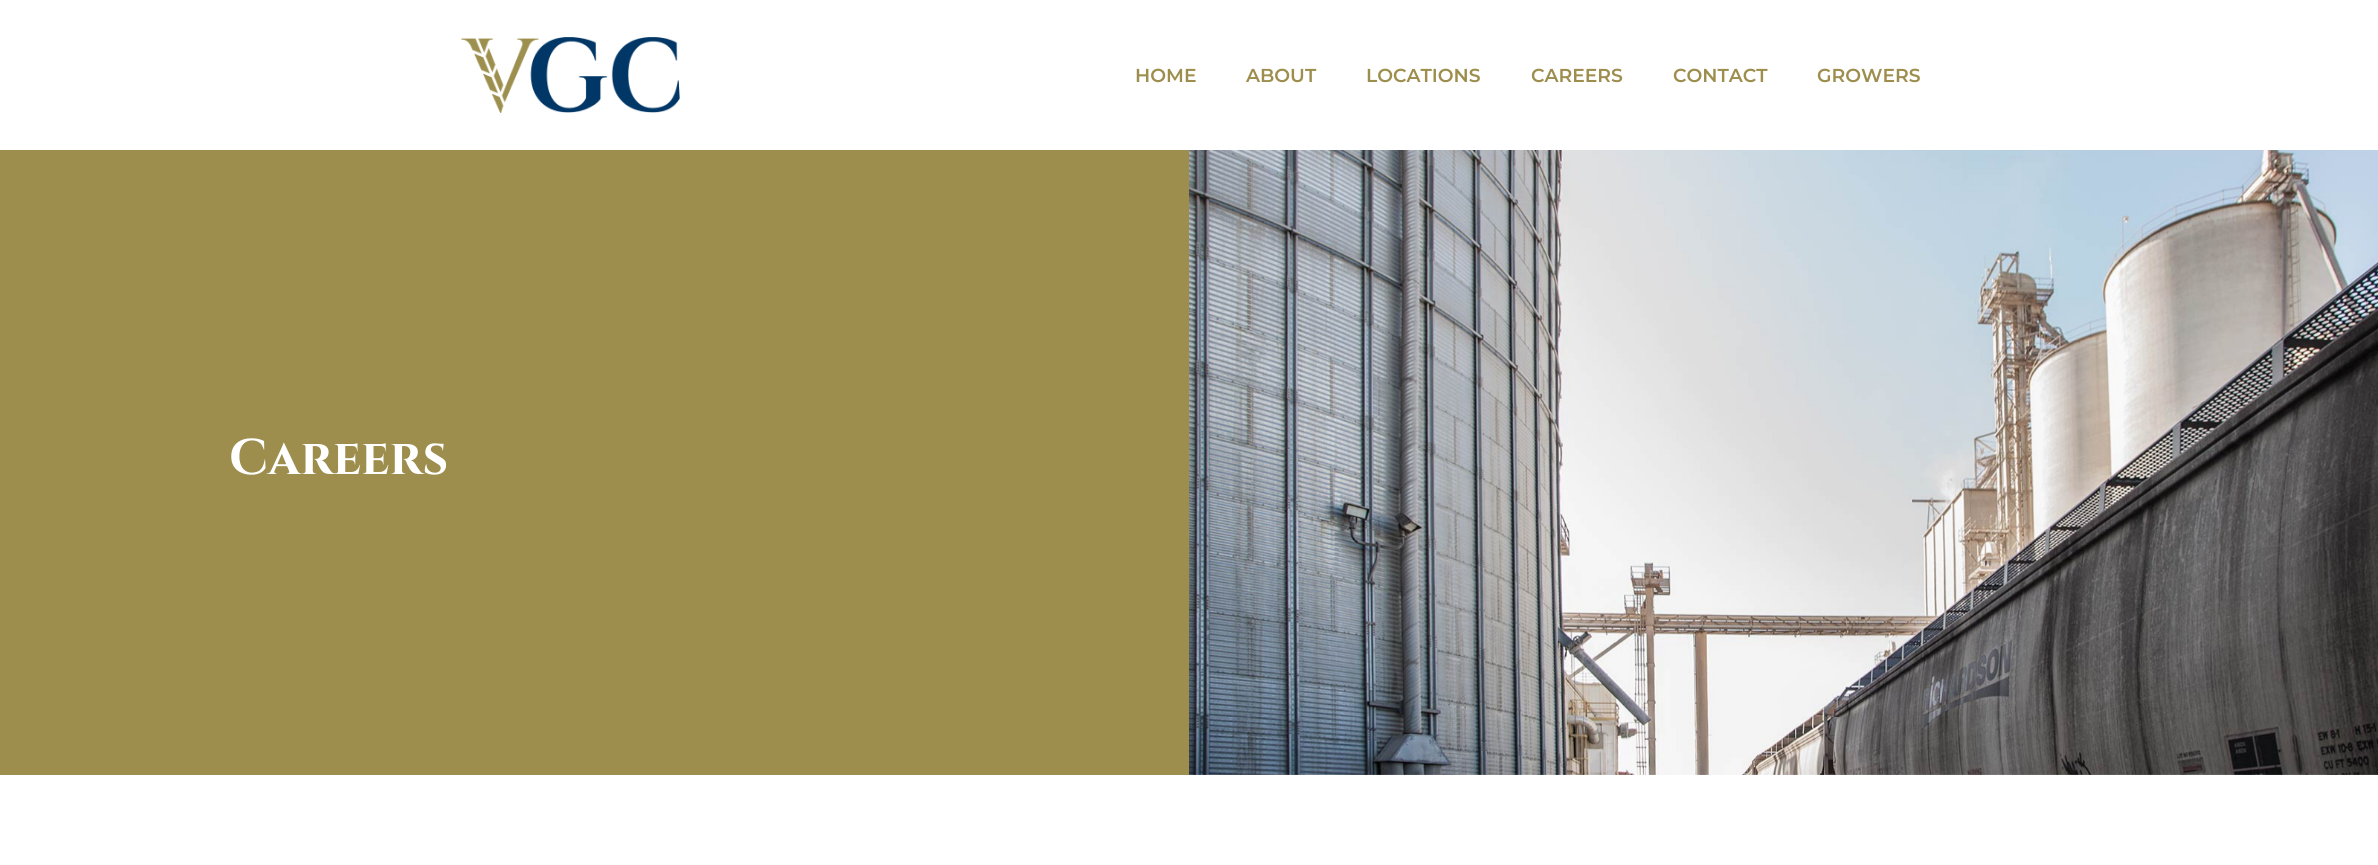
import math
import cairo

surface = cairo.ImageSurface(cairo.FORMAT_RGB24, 2378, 865)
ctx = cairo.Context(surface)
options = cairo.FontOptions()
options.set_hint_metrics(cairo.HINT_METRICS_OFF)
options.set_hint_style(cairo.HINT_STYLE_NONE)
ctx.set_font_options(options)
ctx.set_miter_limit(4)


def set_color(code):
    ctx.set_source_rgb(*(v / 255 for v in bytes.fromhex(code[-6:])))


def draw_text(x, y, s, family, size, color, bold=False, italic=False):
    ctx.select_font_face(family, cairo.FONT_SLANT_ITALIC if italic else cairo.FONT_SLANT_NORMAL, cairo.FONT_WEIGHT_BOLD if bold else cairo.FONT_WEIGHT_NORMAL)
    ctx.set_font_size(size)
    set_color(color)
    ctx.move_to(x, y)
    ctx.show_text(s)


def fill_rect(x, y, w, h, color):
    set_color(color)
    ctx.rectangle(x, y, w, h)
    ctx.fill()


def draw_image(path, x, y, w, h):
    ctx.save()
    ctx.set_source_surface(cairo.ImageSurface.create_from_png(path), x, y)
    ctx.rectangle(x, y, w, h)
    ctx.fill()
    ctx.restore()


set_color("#ffffff")
ctx.paint()
draw_image("assets/img1.png", 461, 37, 219, 76)
draw_text(1135, 82, "HOME", "Montserrat SemiBold", 18.75, "#9d8e4d")
draw_text(1246, 82, "ABOUT", "Montserrat SemiBold", 18.75, "#9d8e4d")
draw_text(1366, 82, "LOCATIONS", "Montserrat SemiBold", 18.75, "#9d8e4d")
draw_text(1531, 82, "CAREERS", "Montserrat SemiBold", 18.75, "#9d8e4d")
draw_text(1673, 82, "CONTACT", "Montserrat SemiBold", 18.75, "#9d8e4d")
draw_text(1817, 82, "GROWERS", "Montserrat SemiBold", 18.75, "#9d8e4d")
fill_rect(0, 150, 1189, 625, "#9d8e4d")
draw_image("assets/img2.png", 1189, 150, 1189, 625)
draw_text(229, 474, "Careers", "Cinzel", 50, "#ffffff", bold=True)
surface.write_to_png("output.png")
